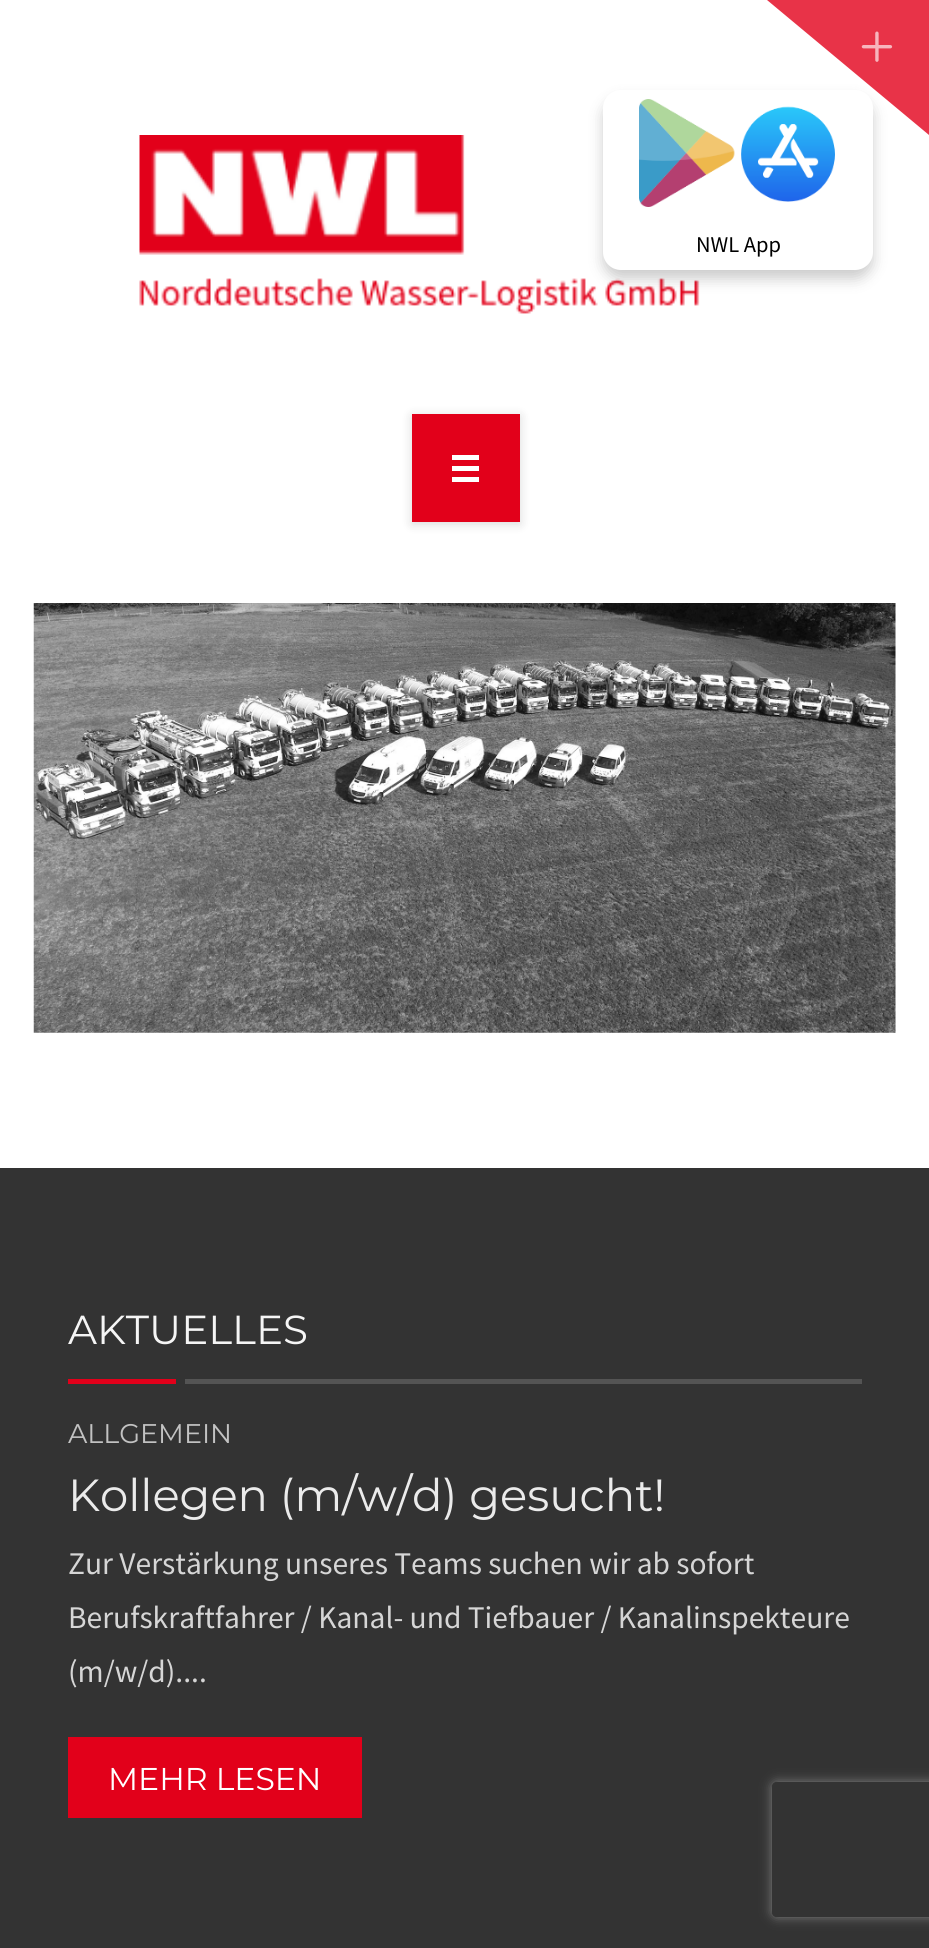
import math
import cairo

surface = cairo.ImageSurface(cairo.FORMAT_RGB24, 929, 1948)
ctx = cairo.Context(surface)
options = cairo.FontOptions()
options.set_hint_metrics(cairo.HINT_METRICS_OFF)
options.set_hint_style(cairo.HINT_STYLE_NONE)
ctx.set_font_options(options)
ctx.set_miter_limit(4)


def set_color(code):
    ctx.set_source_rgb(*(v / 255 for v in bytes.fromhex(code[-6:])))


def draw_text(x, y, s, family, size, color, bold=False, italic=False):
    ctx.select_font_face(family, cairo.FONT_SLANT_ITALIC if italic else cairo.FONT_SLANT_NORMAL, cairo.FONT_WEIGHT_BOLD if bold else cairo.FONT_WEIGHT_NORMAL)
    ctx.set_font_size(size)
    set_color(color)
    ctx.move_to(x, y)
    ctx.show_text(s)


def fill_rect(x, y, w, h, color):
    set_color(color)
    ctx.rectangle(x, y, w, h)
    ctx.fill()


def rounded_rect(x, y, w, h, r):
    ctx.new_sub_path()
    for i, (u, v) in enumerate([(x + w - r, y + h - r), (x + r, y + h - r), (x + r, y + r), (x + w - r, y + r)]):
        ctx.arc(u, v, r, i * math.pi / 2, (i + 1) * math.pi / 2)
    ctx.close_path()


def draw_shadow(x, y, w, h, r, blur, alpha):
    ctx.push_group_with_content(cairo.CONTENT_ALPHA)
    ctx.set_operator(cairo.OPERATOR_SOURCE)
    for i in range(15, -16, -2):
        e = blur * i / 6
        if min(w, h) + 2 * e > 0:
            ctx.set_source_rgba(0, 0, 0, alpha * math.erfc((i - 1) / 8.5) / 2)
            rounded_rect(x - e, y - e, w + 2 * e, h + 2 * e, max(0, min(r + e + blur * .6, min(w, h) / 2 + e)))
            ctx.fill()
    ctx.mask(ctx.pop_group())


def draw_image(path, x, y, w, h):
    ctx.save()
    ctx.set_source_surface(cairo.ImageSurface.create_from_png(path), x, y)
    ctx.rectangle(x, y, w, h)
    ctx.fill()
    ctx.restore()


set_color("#ffffff")
ctx.paint()
set_color("#e83348")
ctx.new_path()
ctx.move_to(767, 0)
ctx.line_to(929, 0)
ctx.line_to(929, 135)
ctx.close_path()
ctx.fill()
draw_image("assets/img1.png", 861, 31, 32, 31)
draw_image("assets/img2.png", 139, 135, 561, 179)
set_color("#000000")
draw_shadow(412, 416, 108, 108, 0, 5.5, 0.15)
fill_rect(412, 414, 108, 108, "#e2001a")
fill_rect(452, 455, 27, 5, "#ffffff")
fill_rect(452, 466, 27, 5, "#ffffff")
fill_rect(452, 477, 27, 5, "#ffffff")
draw_image("assets/img3.png", 33, 603, 863, 430)
set_color("#000000")
draw_shadow(603, 99, 270, 180, 18, 7, 0.2)
set_color("#ffffff")
rounded_rect(603, 90, 270, 180, 18)
ctx.fill()
draw_image("assets/img4.png", 639, 99, 196, 108)
draw_text(696, 252, "NWL App", "Source Sans Pro", 22.5, "#000000")
fill_rect(0, 1168, 929, 780, "#333333")
draw_text(68, 1344, "AKTUELLES", "Montserrat Thin", 40.5, "#f5f5f5")
fill_rect(68, 1379, 108, 5, "#e2001a")
fill_rect(185, 1379, 677, 5, "#545454")
draw_text(68, 1443, "ALLGEMEIN", "Montserrat Thin", 27, "#c2c2c2")
draw_text(68, 1511, "Kollegen (m/w/d) gesucht!", "Montserrat Thin", 45, "#ebebeb")
draw_text(68, 1574, "Zur Verstärkung unseres Teams suchen wir ab sofort", "Source Sans Pro", 31.5, "#d6d6d6")
draw_text(68, 1628, "Berufskraftfahrer / Kanal- und Tiefbauer / Kanalinspekteure", "Source Sans Pro", 31.5, "#d6d6d6")
draw_text(68, 1682, "(m/w/d)....", "Source Sans Pro", 31.5, "#d6d6d6")
fill_rect(68, 1737, 294, 81, "#e2001a")
draw_text(108, 1790, "MEHR LESEN", "Montserrat Thin", 31.5, "#ffffff")
ctx.save()
ctx.set_fill_rule(cairo.FILL_RULE_EVEN_ODD)
ctx.new_path()
ctx.move_to(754, 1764)
ctx.line_to(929, 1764)
ctx.line_to(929, 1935)
ctx.line_to(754, 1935)
ctx.close_path()
ctx.move_to(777, 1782)
ctx.line_to(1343, 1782)
ctx.curve_to(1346, 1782, 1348, 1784, 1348, 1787)
ctx.line_to(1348, 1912)
ctx.curve_to(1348, 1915, 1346, 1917, 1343, 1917)
ctx.line_to(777, 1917)
ctx.curve_to(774, 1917, 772, 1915, 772, 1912)
ctx.line_to(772, 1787)
ctx.curve_to(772, 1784, 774, 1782, 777, 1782)
ctx.close_path()
ctx.clip()
set_color("#808080")
draw_shadow(772, 1782, 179, 135, 5, 5.5, 1)
ctx.restore()
surface.write_to_png("output.png")
